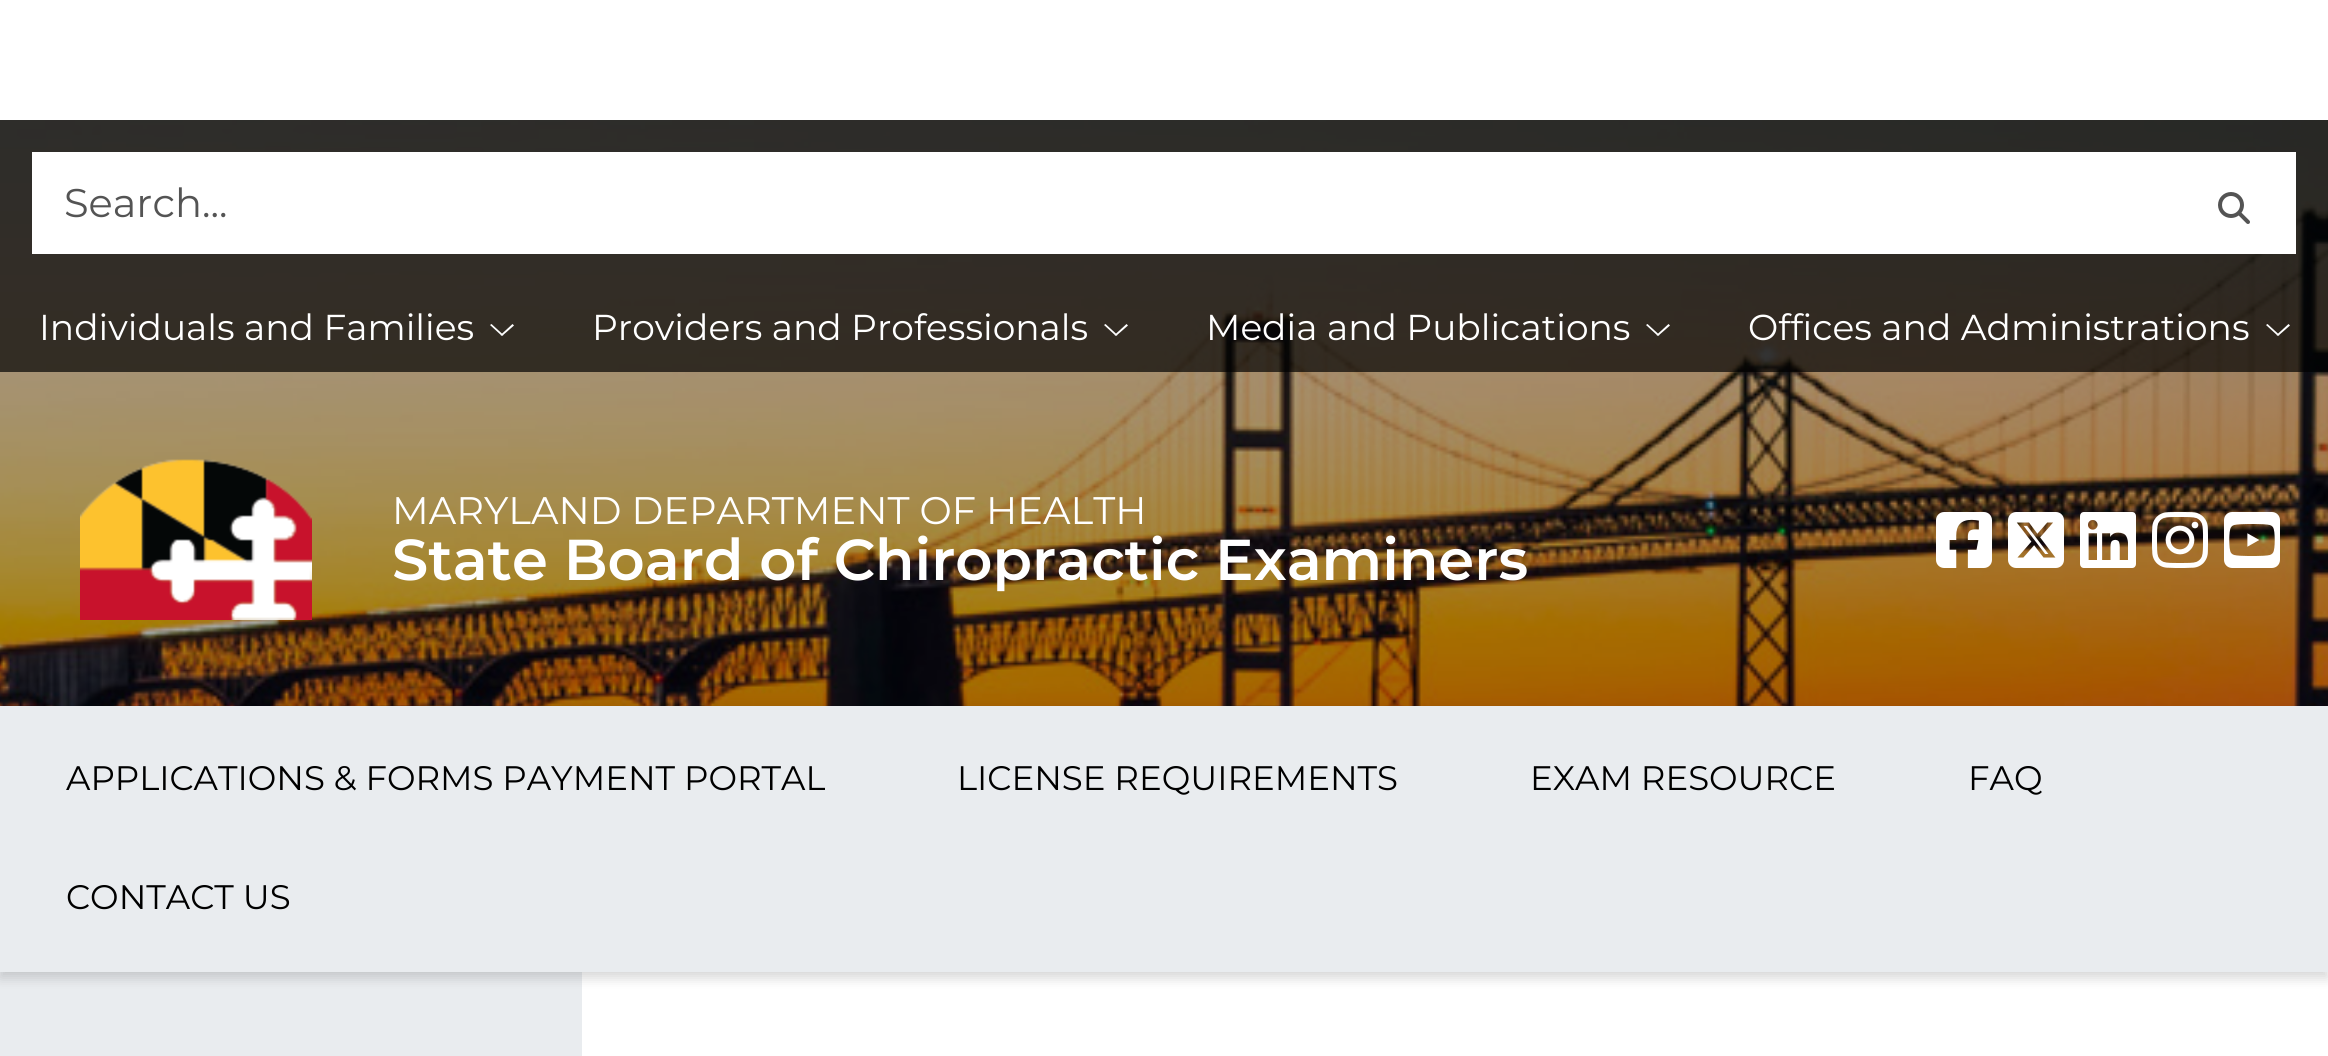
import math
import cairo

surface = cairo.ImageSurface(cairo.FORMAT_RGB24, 2328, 1056)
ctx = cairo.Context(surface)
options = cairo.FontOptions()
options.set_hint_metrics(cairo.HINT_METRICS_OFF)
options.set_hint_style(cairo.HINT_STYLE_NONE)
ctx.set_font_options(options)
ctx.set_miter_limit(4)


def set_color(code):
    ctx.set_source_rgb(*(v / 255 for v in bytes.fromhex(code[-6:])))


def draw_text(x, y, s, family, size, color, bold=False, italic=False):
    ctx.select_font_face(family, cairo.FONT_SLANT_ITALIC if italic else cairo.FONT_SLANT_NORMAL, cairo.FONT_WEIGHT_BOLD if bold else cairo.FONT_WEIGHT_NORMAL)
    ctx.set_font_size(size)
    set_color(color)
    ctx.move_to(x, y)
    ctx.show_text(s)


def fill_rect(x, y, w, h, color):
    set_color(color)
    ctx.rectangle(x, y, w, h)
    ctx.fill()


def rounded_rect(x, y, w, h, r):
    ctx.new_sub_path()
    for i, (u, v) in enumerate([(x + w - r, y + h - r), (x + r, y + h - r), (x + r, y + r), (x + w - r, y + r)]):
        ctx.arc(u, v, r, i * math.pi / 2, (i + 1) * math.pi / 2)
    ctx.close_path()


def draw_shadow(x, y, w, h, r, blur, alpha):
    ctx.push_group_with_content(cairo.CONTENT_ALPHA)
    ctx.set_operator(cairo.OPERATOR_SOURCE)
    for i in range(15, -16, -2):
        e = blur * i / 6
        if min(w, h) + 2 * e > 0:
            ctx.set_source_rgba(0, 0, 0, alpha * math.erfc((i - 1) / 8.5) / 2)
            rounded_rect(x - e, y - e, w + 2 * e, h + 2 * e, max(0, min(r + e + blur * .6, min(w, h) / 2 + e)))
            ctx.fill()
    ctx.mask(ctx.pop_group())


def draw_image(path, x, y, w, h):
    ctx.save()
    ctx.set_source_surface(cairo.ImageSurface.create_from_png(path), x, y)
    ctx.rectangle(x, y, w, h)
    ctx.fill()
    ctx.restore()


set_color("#ffffff")
ctx.paint()
draw_image("assets/img1.png", 0, 120, 2328, 586)
ctx.set_source_rgba(0, 0, 0, 0.8)
ctx.rectangle(0, 120, 2328, 252)
ctx.fill()
fill_rect(32, 152, 2264, 102, "#ffffff")
draw_text(64, 217, "Search...", "Montserrat Thin", 40, "#545454")
draw_image("assets/img2.png", 2218, 192, 32, 32)
draw_text(39, 340, "Individuals and Families", "Montserrat Thin", 36, "#ffffff")
ctx.new_path()
ctx.move_to(502, 336)
ctx.line_to(503.5, 335)
ctx.line_to(491.5, 324)
ctx.line_to(490, 325)
ctx.close_path()
ctx.move_to(500.5, 335)
ctx.line_to(502, 336)
ctx.line_to(514, 325.5)
ctx.line_to(512.5, 324)
ctx.close_path()
ctx.fill()
draw_text(592, 340, "Providers and Professionals", "Montserrat Thin", 36, "#ffffff")
ctx.new_path()
ctx.move_to(1116, 336)
ctx.line_to(1117.5, 335)
ctx.line_to(1105.5, 324)
ctx.line_to(1104, 325)
ctx.close_path()
ctx.move_to(1114.5, 335)
ctx.line_to(1116, 336)
ctx.line_to(1128, 325.5)
ctx.line_to(1126.5, 324)
ctx.close_path()
ctx.fill()
draw_text(1206, 340, "Media and Publications", "Montserrat Thin", 36, "#ffffff")
ctx.new_path()
ctx.move_to(1658, 336)
ctx.line_to(1659.5, 335)
ctx.line_to(1647.5, 324)
ctx.line_to(1646, 325)
ctx.close_path()
ctx.move_to(1656.5, 335)
ctx.line_to(1658, 336)
ctx.line_to(1670, 325.5)
ctx.line_to(1668.5, 324)
ctx.close_path()
ctx.fill()
draw_text(1748, 340, "Offices and Administrations", "Montserrat Thin", 36, "#ffffff")
ctx.new_path()
ctx.move_to(2278, 336)
ctx.line_to(2279.5, 335)
ctx.line_to(2267.5, 324)
ctx.line_to(2266, 325)
ctx.close_path()
ctx.move_to(2276.5, 335)
ctx.line_to(2278, 336)
ctx.line_to(2290, 325.5)
ctx.line_to(2288.5, 324)
ctx.close_path()
ctx.fill()
ctx.set_source_rgba(0, 0, 0, 0.35)
ctx.rectangle(0, 372, 2328, 334)
ctx.fill()
draw_image("assets/img3.png", 80, 459, 232, 161)
draw_text(392, 524, "MARYLAND DEPARTMENT OF HEALTH", "Montserrat Thin", 38.4, "#ffffff")
draw_text(392, 580, "State Board of Chiropractic Examiners", "Montserrat SemiBold", 57.6, "#ffffff")
draw_image("assets/img4.png", 1936, 512, 56, 56)
draw_image("assets/img5.png", 2008, 512, 56, 56)
draw_image("assets/img6.png", 2080, 512, 56, 56)
draw_image("assets/img7.png", 2152, 512, 56, 56)
draw_image("assets/img8.png", 2224, 512, 56, 56)
fill_rect(0, 972, 582, 84, "#e9ecef")
set_color("#000000")
draw_shadow(0, 712, 2328, 266, 0, 6, 0.16)
fill_rect(0, 706, 2328, 266, "#e9ecef")
draw_text(66, 790, "APPLICATIONS & FORMS PAYMENT PORTAL", "Montserrat Thin", 34, "#000000")
draw_text(957, 790, "LICENSE REQUIREMENTS", "Montserrat Thin", 34, "#000000")
draw_text(1530, 790, "EXAM RESOURCE", "Montserrat Thin", 34, "#000000")
draw_text(1968, 790, "FAQ", "Montserrat Thin", 34, "#000000")
draw_text(66, 909, "CONTACT US", "Montserrat Thin", 34, "#000000")
surface.write_to_png("output.png")
